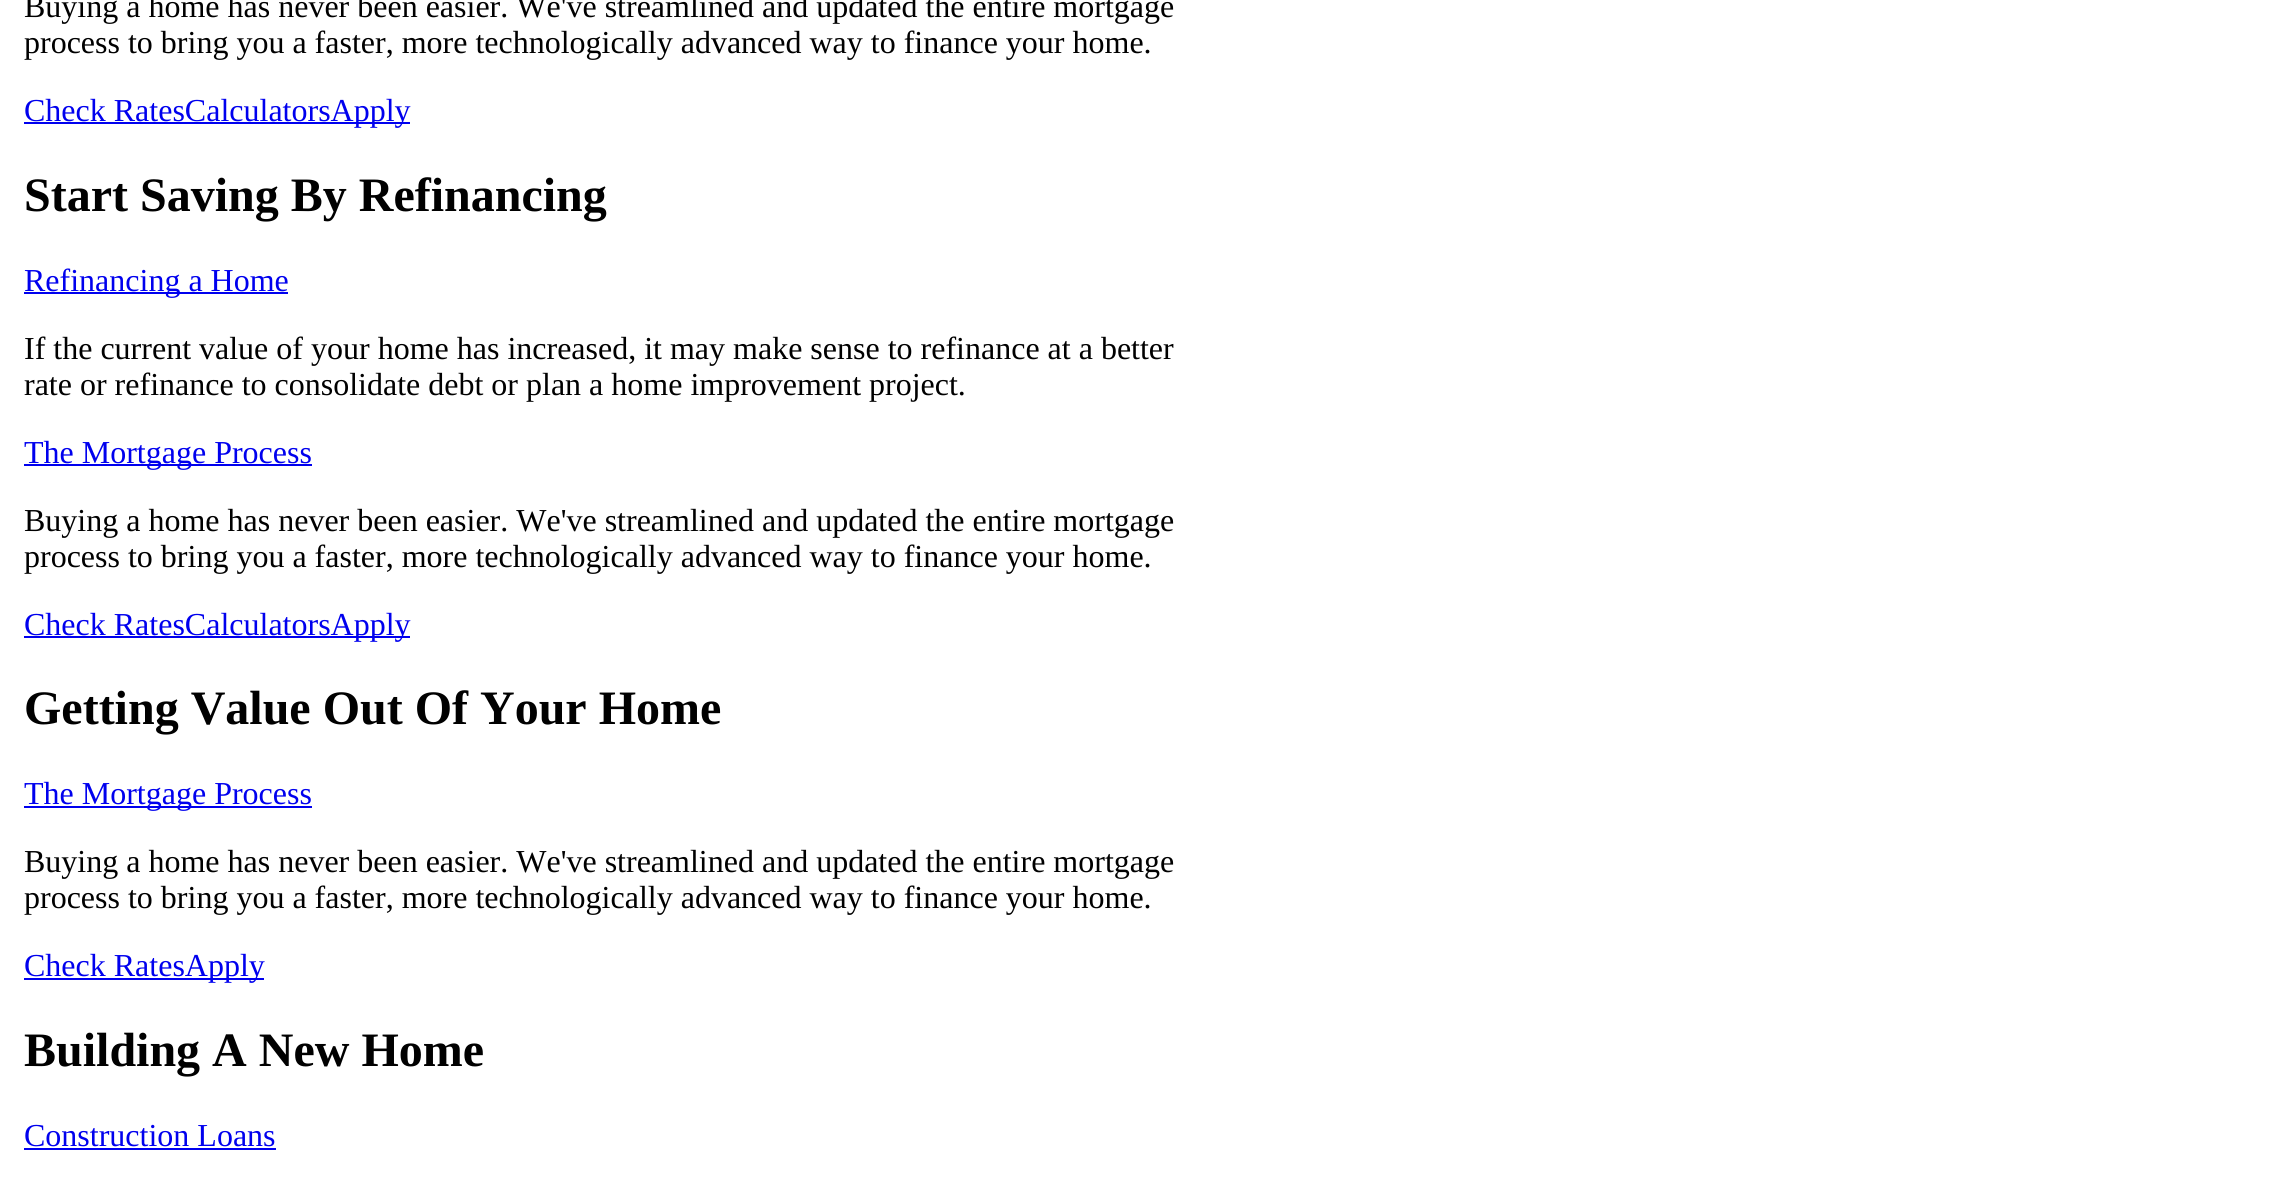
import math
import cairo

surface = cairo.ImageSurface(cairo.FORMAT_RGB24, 2293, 1199)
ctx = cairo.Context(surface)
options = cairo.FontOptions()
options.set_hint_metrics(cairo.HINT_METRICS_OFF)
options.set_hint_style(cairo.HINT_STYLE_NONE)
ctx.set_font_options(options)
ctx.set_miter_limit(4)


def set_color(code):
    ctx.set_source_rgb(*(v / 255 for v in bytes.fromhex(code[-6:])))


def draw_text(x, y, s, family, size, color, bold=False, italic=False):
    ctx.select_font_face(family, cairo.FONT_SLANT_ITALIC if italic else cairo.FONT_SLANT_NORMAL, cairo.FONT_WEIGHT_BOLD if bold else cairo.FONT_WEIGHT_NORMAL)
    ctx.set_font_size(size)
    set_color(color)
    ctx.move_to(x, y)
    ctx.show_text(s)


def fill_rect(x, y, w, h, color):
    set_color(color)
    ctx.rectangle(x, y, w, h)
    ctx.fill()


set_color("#ffffff")
ctx.paint()
draw_text(24, 17, "Buying a home has never been easier. We've streamlined and updated the entire mortgage", "Liberation Serif", 32, "#000000")
draw_text(24, 53, "process to bring you a faster, more technologically advanced way to finance your home.", "Liberation Serif", 32, "#000000")
fill_rect(24, 122, 386, 2, "#0000ee")
draw_text(24, 121, "Check RatesCalculatorsApply", "Liberation Serif", 32, "#0000ee")
draw_text(24, 211, "Start Saving By Refinancing", "Liberation Serif", 48, "#000000", bold=True)
fill_rect(24, 292, 264, 2, "#0000ee")
draw_text(24, 291, "Refinancing a Home", "Liberation Serif", 32, "#0000ee")
draw_text(24, 359, "If the current value of your home has increased, it may make sense to refinance at a better", "Liberation Serif", 32, "#000000")
draw_text(24, 395, "rate or refinance to consolidate debt or plan a home improvement project.", "Liberation Serif", 32, "#000000")
fill_rect(24, 464, 288, 2, "#0000ee")
draw_text(24, 463, "The Mortgage Process", "Liberation Serif", 32, "#0000ee")
draw_text(24, 531, "Buying a home has never been easier. We've streamlined and updated the entire mortgage", "Liberation Serif", 32, "#000000")
draw_text(24, 567, "process to bring you a faster, more technologically advanced way to finance your home.", "Liberation Serif", 32, "#000000")
fill_rect(24, 636, 386, 2, "#0000ee")
draw_text(24, 635, "Check RatesCalculatorsApply", "Liberation Serif", 32, "#0000ee")
draw_text(24, 724, "Getting Value Out Of Your Home", "Liberation Serif", 48, "#000000", bold=True)
fill_rect(24, 806, 288, 2, "#0000ee")
draw_text(24, 804, "The Mortgage Process", "Liberation Serif", 32, "#0000ee")
draw_text(24, 872, "Buying a home has never been easier. We've streamlined and updated the entire mortgage", "Liberation Serif", 32, "#000000")
draw_text(24, 908, "process to bring you a faster, more technologically advanced way to finance your home.", "Liberation Serif", 32, "#000000")
fill_rect(24, 978, 240, 2, "#0000ee")
draw_text(24, 976, "Check RatesApply", "Liberation Serif", 32, "#0000ee")
draw_text(24, 1066, "Building A New Home", "Liberation Serif", 48, "#000000", bold=True)
draw_text(24, 1146, "Construction Loans", "Liberation Serif", 32, "#0000ee")
fill_rect(24, 1148, 252, 2, "#0000ee")
surface.write_to_png("output.png")
